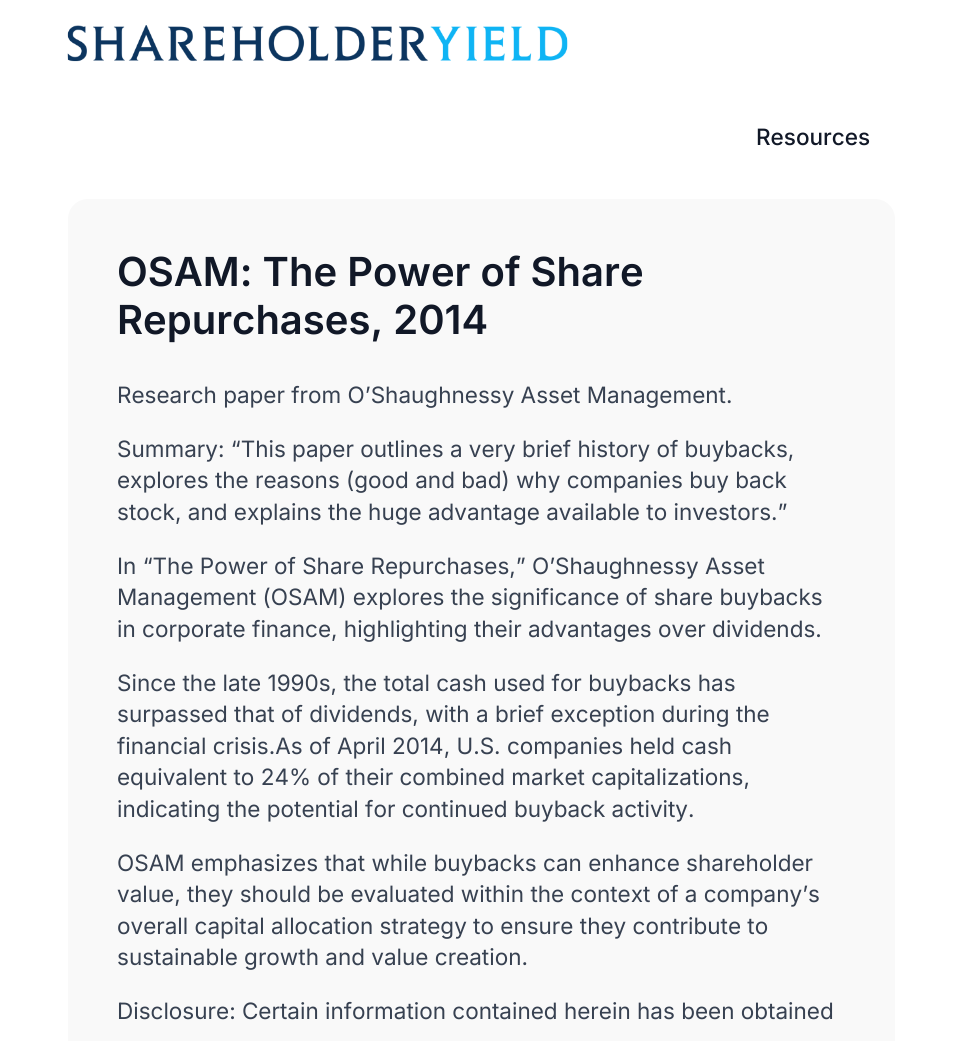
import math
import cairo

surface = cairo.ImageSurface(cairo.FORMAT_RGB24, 962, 1041)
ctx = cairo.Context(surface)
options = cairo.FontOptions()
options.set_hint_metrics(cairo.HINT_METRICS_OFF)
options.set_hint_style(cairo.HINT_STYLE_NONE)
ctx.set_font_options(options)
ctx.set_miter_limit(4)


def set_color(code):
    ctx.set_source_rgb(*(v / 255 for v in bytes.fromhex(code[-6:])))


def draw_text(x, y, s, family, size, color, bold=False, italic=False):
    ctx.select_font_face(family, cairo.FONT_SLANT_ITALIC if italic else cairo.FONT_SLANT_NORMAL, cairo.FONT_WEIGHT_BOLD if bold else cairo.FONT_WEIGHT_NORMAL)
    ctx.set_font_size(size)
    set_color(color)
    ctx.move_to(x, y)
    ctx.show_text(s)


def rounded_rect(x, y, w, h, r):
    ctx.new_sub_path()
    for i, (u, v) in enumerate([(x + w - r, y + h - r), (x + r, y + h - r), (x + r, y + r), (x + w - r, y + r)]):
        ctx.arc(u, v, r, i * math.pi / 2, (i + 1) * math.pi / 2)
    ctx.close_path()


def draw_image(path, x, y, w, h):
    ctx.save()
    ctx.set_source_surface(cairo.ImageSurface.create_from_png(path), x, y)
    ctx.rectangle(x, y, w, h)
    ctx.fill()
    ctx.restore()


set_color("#ffffff")
ctx.paint()
draw_image("assets/img1.png", 67, 25, 501, 37)
draw_text(756, 145, "Resources", "Inter Medium", 22.5, "#111827")
set_color("#f9f9f9")
rounded_rect(68, 199, 827, 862, 20)
ctx.fill()
draw_text(117, 286, "OSAM: The Power of Share", "Inter SemiBold", 40, "#111827")
draw_text(117, 334, "Repurchases, 2014", "Inter SemiBold", 40, "#111827")
draw_text(117, 403, "Research paper from O’Shaughnessy Asset Management.", "Inter", 22.5, "#374151")
draw_text(117, 457, "Summary: “This paper outlines a very brief history of buybacks,", "Inter", 22.5, "#374151")
draw_text(117, 488, "explores the reasons (good and bad) why companies buy back", "Inter", 22.5, "#374151")
draw_text(117, 520, "stock, and explains the huge advantage available to investors.”", "Inter", 22.5, "#374151")
draw_text(117, 574, "In “The Power of Share Repurchases,” O’Shaughnessy Asset", "Inter", 22.5, "#374151")
draw_text(117, 605, "Management (OSAM) explores the significance of share buybacks", "Inter", 22.5, "#374151")
draw_text(117, 637, "in corporate finance, highlighting their advantages over dividends.", "Inter", 22.5, "#374151")
draw_text(117, 691, "Since the late 1990s, the total cash used for buybacks has", "Inter", 22.5, "#374151")
draw_text(117, 722, "surpassed that of dividends, with a brief exception during the", "Inter", 22.5, "#374151")
draw_text(117, 754, "financial crisis.As of April 2014, U.S. companies held cash", "Inter", 22.5, "#374151")
draw_text(117, 785, "equivalent to 24% of their combined market capitalizations,", "Inter", 22.5, "#374151")
draw_text(117, 817, "indicating the potential for continued buyback activity.", "Inter", 22.5, "#374151")
draw_text(117, 871, "OSAM emphasizes that while buybacks can enhance shareholder", "Inter", 22.5, "#374151")
draw_text(117, 902, "value, they should be evaluated within the context of a company’s", "Inter", 22.5, "#374151")
draw_text(117, 934, "overall capital allocation strategy to ensure they contribute to", "Inter", 22.5, "#374151")
draw_text(117, 965, "sustainable growth and value creation.", "Inter", 22.5, "#374151")
draw_text(117, 1019, "Disclosure: Certain information contained herein has been obtained", "Inter", 22.5, "#374151")
surface.write_to_png("output.png")
